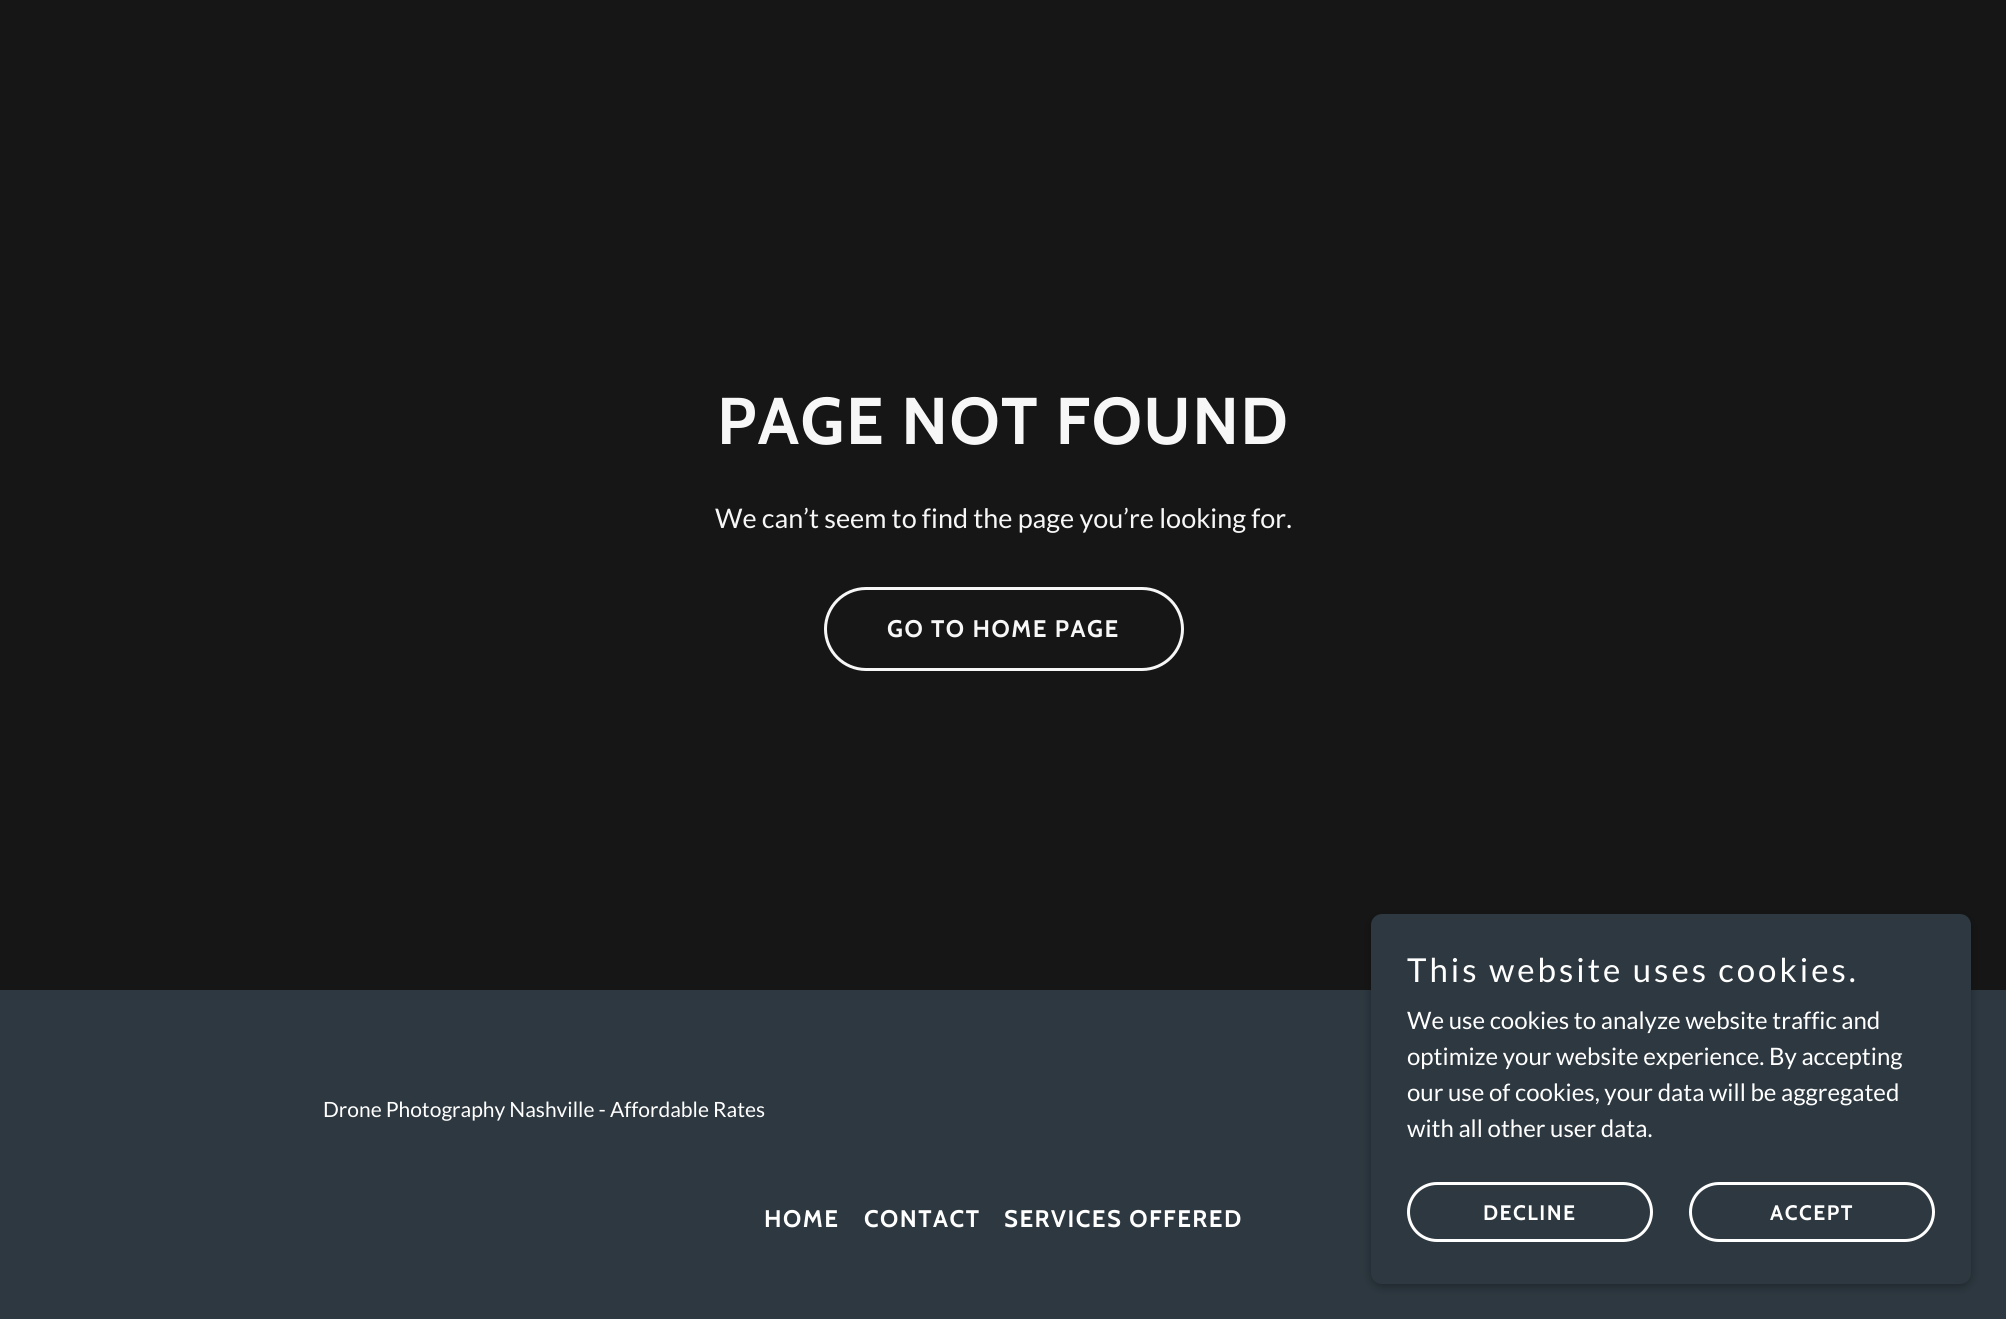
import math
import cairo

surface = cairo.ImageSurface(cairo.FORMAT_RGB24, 2006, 1319)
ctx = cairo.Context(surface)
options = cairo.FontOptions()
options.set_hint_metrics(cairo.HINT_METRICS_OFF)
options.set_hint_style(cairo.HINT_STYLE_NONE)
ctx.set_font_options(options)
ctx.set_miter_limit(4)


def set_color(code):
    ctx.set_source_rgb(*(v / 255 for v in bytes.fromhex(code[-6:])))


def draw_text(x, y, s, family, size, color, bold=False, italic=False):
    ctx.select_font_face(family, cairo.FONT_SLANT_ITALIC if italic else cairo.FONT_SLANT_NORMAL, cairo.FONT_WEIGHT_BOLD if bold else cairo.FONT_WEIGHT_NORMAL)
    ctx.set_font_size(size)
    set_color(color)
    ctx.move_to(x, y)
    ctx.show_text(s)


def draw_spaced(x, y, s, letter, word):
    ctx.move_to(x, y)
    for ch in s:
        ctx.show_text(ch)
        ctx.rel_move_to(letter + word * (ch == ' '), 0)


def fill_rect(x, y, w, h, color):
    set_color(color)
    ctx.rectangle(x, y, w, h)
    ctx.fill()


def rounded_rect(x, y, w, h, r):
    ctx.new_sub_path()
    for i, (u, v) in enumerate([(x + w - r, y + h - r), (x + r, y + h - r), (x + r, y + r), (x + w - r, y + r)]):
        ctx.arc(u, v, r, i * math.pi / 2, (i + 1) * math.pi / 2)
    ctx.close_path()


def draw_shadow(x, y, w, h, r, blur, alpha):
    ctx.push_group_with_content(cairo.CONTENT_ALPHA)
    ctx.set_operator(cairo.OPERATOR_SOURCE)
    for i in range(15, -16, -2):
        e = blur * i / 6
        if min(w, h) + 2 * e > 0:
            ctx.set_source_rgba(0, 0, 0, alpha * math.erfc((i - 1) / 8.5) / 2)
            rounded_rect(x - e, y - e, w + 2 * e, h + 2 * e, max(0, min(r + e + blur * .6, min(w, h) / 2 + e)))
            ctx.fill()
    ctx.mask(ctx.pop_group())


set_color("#2d3840")
ctx.paint()
fill_rect(0, 0, 2006, 990, "#161616")
ctx.select_font_face("Cabin", cairo.FONT_SLANT_NORMAL, cairo.FONT_WEIGHT_BOLD)
ctx.set_font_size(66)
set_color("#f7f7f7")
draw_spaced(717, 444, "PAGE NOT FOUND", 1.5, 0)
draw_text(715, 528, "We can’t seem to find the page you’re looking for.", "Lato", 27, "#f7f7f7")
rounded_rect(825.5, 588.5, 357, 81, 40.5)
ctx.set_line_width(3)
ctx.stroke()
ctx.select_font_face("Cabin", cairo.FONT_SLANT_NORMAL, cairo.FONT_WEIGHT_BOLD)
ctx.set_font_size(24)
draw_spaced(887, 637, "GO TO HOME PAGE", 1.5, 0)
draw_text(323, 1117, "Drone Photography Nashville - Affordable Rates", "Lato", 21, "#ffffff")
ctx.select_font_face("Cabin", cairo.FONT_SLANT_NORMAL, cairo.FONT_WEIGHT_BOLD)
ctx.set_font_size(24)
draw_spaced(764, 1227, "HOME", 1.5, 0)
draw_spaced(864, 1227, "CONTACT", 1.5, 0)
draw_spaced(1004, 1227, "SERVICES OFFERED", 1.5, 0)
set_color("#000000")
draw_shadow(1371, 917, 600, 370, 11, 4.5, 0.3)
set_color("#2d3840")
rounded_rect(1371, 914, 600, 370, 11)
ctx.fill()
ctx.select_font_face("Lato")
ctx.set_font_size(33)
set_color("#ffffff")
draw_spaced(1407, 982, "This website uses cookies.", 3, 0)
draw_text(1407, 1029, "We use cookies to analyze website traffic and", "Lato", 24, "#ffffff")
draw_text(1407, 1065, "optimize your website experience. By accepting", "Lato", 24, "#ffffff")
draw_text(1407, 1101, "our use of cookies, your data will be aggregated", "Lato", 24, "#ffffff")
draw_text(1407, 1137, "with all other user data.", "Lato", 24, "#ffffff")
rounded_rect(1408.5, 1183.5, 243, 57, 28.5)
ctx.stroke()
ctx.select_font_face("Cabin", cairo.FONT_SLANT_NORMAL, cairo.FONT_WEIGHT_BOLD)
ctx.set_font_size(21)
draw_spaced(1483, 1220, "DECLINE", 1.5, 0)
rounded_rect(1690.5, 1183.5, 243, 57, 28.5)
ctx.stroke()
draw_spaced(1770, 1220, "ACCEPT", 1.5, 0)
surface.write_to_png("output.png")
